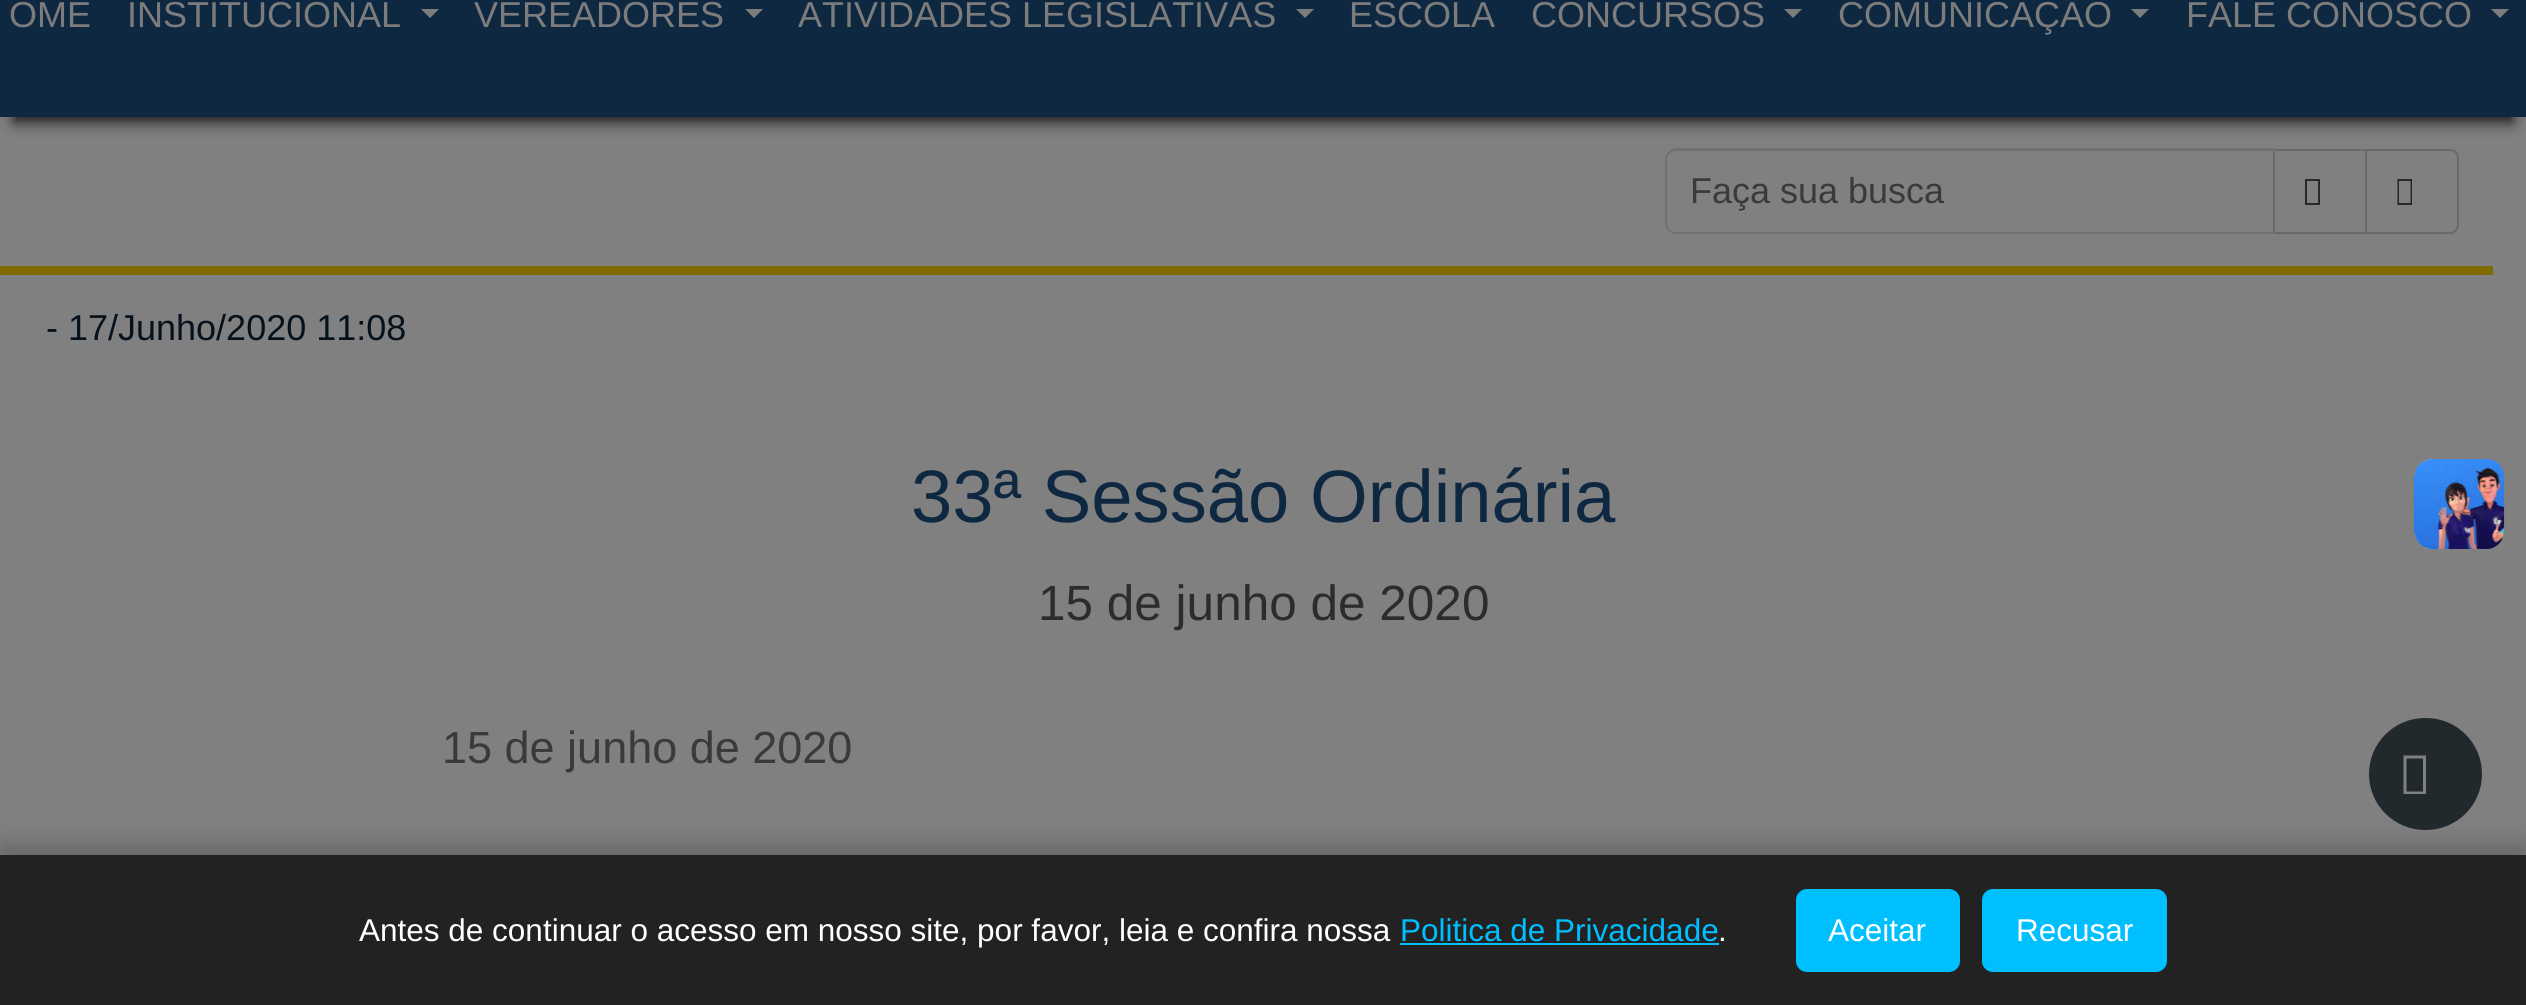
import math
import cairo

surface = cairo.ImageSurface(cairo.FORMAT_RGB24, 2526, 1005)
ctx = cairo.Context(surface)
options = cairo.FontOptions()
options.set_hint_metrics(cairo.HINT_METRICS_OFF)
options.set_hint_style(cairo.HINT_STYLE_NONE)
ctx.set_font_options(options)
ctx.set_miter_limit(4)


def set_color(code):
    ctx.set_source_rgb(*(v / 255 for v in bytes.fromhex(code[-6:])))


def draw_text(x, y, s, family, size, color, bold=False, italic=False):
    ctx.select_font_face(family, cairo.FONT_SLANT_ITALIC if italic else cairo.FONT_SLANT_NORMAL, cairo.FONT_WEIGHT_BOLD if bold else cairo.FONT_WEIGHT_NORMAL)
    ctx.set_font_size(size)
    set_color(color)
    ctx.move_to(x, y)
    ctx.show_text(s)


def fill_rect(x, y, w, h, color):
    set_color(color)
    ctx.rectangle(x, y, w, h)
    ctx.fill()


def rounded_rect(x, y, w, h, r):
    ctx.new_sub_path()
    for i, (u, v) in enumerate([(x + w - r, y + h - r), (x + r, y + h - r), (x + r, y + r), (x + w - r, y + r)]):
        ctx.arc(u, v, r, i * math.pi / 2, (i + 1) * math.pi / 2)
    ctx.close_path()


def draw_shadow(x, y, w, h, r, blur, alpha):
    ctx.push_group_with_content(cairo.CONTENT_ALPHA)
    ctx.set_operator(cairo.OPERATOR_SOURCE)
    for i in range(15, -16, -2):
        e = blur * i / 6
        if min(w, h) + 2 * e > 0:
            ctx.set_source_rgba(0, 0, 0, alpha * math.erfc((i - 1) / 8.5) / 2)
            rounded_rect(x - e, y - e, w + 2 * e, h + 2 * e, max(0, min(r + e + blur * .6, min(w, h) / 2 + e)))
            ctx.fill()
    ctx.mask(ctx.pop_group())


def draw_image(path, x, y, w, h):
    ctx.save()
    ctx.set_source_surface(cairo.ImageSurface.create_from_png(path), x, y)
    ctx.rectangle(x, y, w, h)
    ctx.fill()
    ctx.restore()


set_color("#808080")
ctx.paint()
set_color("#1e1818")
draw_shadow(14, -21, 2499, 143, 0, 7, 1)
fill_rect(0, 0, 2526, 117, "#0f2841")
draw_text(9, 27, "OME", "Liberation Sans", 36, "#7c7c7c")
draw_text(127, 27, "INSTITUCIONAL", "Liberation Sans", 36, "#7c7c7c")
ctx.new_path()
ctx.move_to(421, 9)
ctx.line_to(439, 9)
ctx.line_to(430, 18)
ctx.close_path()
ctx.fill()
draw_text(474, 27, "VEREADORES", "Liberation Sans", 36, "#7c7c7c")
ctx.new_path()
ctx.move_to(745, 9)
ctx.line_to(763, 9)
ctx.line_to(754, 18)
ctx.close_path()
ctx.fill()
draw_text(798, 27, "ATIVIDADES LEGISLATIVAS", "Liberation Sans", 36, "#7c7c7c")
ctx.new_path()
ctx.move_to(1296, 9)
ctx.line_to(1314, 9)
ctx.line_to(1305, 18)
ctx.close_path()
ctx.fill()
draw_text(1349, 27, "ESCOLA", "Liberation Sans", 36, "#7c7c7c")
draw_text(1531, 27, "CONCURSOS", "Liberation Sans", 36, "#7c7c7c")
ctx.new_path()
ctx.move_to(1784, 9)
ctx.line_to(1802, 9)
ctx.line_to(1793, 18)
ctx.close_path()
ctx.fill()
draw_text(1838, 27, "COMUNICAÇÃO", "Liberation Sans", 36, "#7c7c7c")
ctx.new_path()
ctx.move_to(2131, 9)
ctx.line_to(2149, 9)
ctx.line_to(2140, 18)
ctx.close_path()
ctx.fill()
draw_text(2186, 27, "FALE CONOSCO", "Liberation Sans", 36, "#7c7c7c")
ctx.new_path()
ctx.move_to(2491, 9)
ctx.line_to(2509, 9)
ctx.line_to(2500, 18)
ctx.close_path()
ctx.fill()
fill_rect(0, 266, 2493, 9, "#806b00")
ctx.rectangle(2274, 150, 92, 83)
set_color("#676a6d")
ctx.stroke()
set_color("#6f7173")
ctx.set_fill_rule(cairo.FILL_RULE_EVEN_ODD)
ctx.new_path()
ctx.move_to(1676, 148)
ctx.line_to(2275, 148)
ctx.line_to(2275, 234)
ctx.line_to(1676, 234)
ctx.curve_to(1670, 234, 1665, 229, 1665, 223)
ctx.line_to(1665, 160)
ctx.curve_to(1665, 154, 1670, 148, 1676, 148)
ctx.close_path()
ctx.move_to(1676, 151)
ctx.line_to(2275, 151)
ctx.line_to(2275, 232)
ctx.line_to(1676, 232)
ctx.curve_to(1671, 232, 1667, 228, 1667, 223)
ctx.line_to(1667, 160)
ctx.curve_to(1667, 155, 1671, 151, 1676, 151)
ctx.close_path()
ctx.fill()
draw_text(1690, 203, "Faça sua busca", "Liberation Sans", 36, "#3a3a3a")
set_color("#25282c")
ctx.set_fill_rule(cairo.FILL_RULE_WINDING)
ctx.new_path()
ctx.move_to(2305, 205)
ctx.line_to(2305, 179)
ctx.line_to(2320, 179)
ctx.line_to(2320, 205)
ctx.close_path()
ctx.move_to(2307, 203)
ctx.line_to(2318, 203)
ctx.line_to(2318, 181)
ctx.line_to(2307, 181)
ctx.close_path()
ctx.fill()
ctx.new_path()
ctx.move_to(2366, 150)
ctx.line_to(2450, 150)
ctx.curve_to(2454.5, 150, 2458, 153.5, 2458, 158)
ctx.line_to(2458, 225)
ctx.curve_to(2458, 229.5, 2454.5, 233, 2450, 233)
ctx.line_to(2366, 233)
ctx.close_path()
set_color("#676a6d")
ctx.stroke()
set_color("#25282c")
ctx.new_path()
ctx.move_to(2397.5, 205)
ctx.line_to(2397.5, 179)
ctx.line_to(2412, 179)
ctx.line_to(2412, 205)
ctx.close_path()
ctx.move_to(2399, 203)
ctx.line_to(2410.5, 203)
ctx.line_to(2410.5, 181)
ctx.line_to(2399, 181)
ctx.close_path()
ctx.fill()
draw_text(46, 340, "- 17/Junho/2020 11:08", "Liberation Sans", 36, "#06111b")
draw_text(911, 522, "33ª Sessão Ordinária", "Liberation Sans", 74.25, "#0f2841")
draw_text(1038, 620, "15 de junho de 2020", "Liberation Sans", 49.5, "#2c2c2c")
draw_text(442, 763, "15 de junho de 2020", "Liberation Sans", 45, "#3a3a3a")
draw_image("assets/img1.png", 2414, 459, 90, 90)
draw_image("assets/img2.png", 2414, 459, 91, 90)
set_color("#22292d")
rounded_rect(2369, 718, 113, 112, 56)
ctx.fill()
set_color("#808080")
ctx.new_path()
ctx.move_to(2403.5, 794)
ctx.line_to(2403.5, 755.5)
ctx.line_to(2426, 755.5)
ctx.line_to(2426, 794)
ctx.close_path()
ctx.move_to(2406.5, 791.5)
ctx.line_to(2423, 791.5)
ctx.line_to(2423, 758.5)
ctx.line_to(2406.5, 758.5)
ctx.close_path()
ctx.fill()
set_color("#000000")
draw_shadow(0, 844, 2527, 151, 0, 11, 0.2)
fill_rect(0, 855, 2526, 150, "#222222")
draw_text(359, 941, "Antes de continuar o acesso em nosso site, por favor, leia e confira nossa", "Liberation Sans", 31.5, "#ffffff")
draw_text(1400, 941, "Politica de Privacidade", "Liberation Sans", 31.5, "#00bfff")
fill_rect(1400, 943, 319, 2, "#00bfff")
draw_text(1718, 941, ".", "Liberation Sans", 31.5, "#ffffff")
set_color("#00bfff")
rounded_rect(1796, 889, 164, 83, 11)
ctx.fill()
draw_text(1828, 941, "Aceitar", "Liberation Sans", 31.5, "#ffffff")
set_color("#00bfff")
rounded_rect(1982, 889, 185, 83, 11)
ctx.fill()
draw_text(2016, 941, "Recusar", "Liberation Sans", 31.5, "#ffffff")
surface.write_to_png("output.png")
